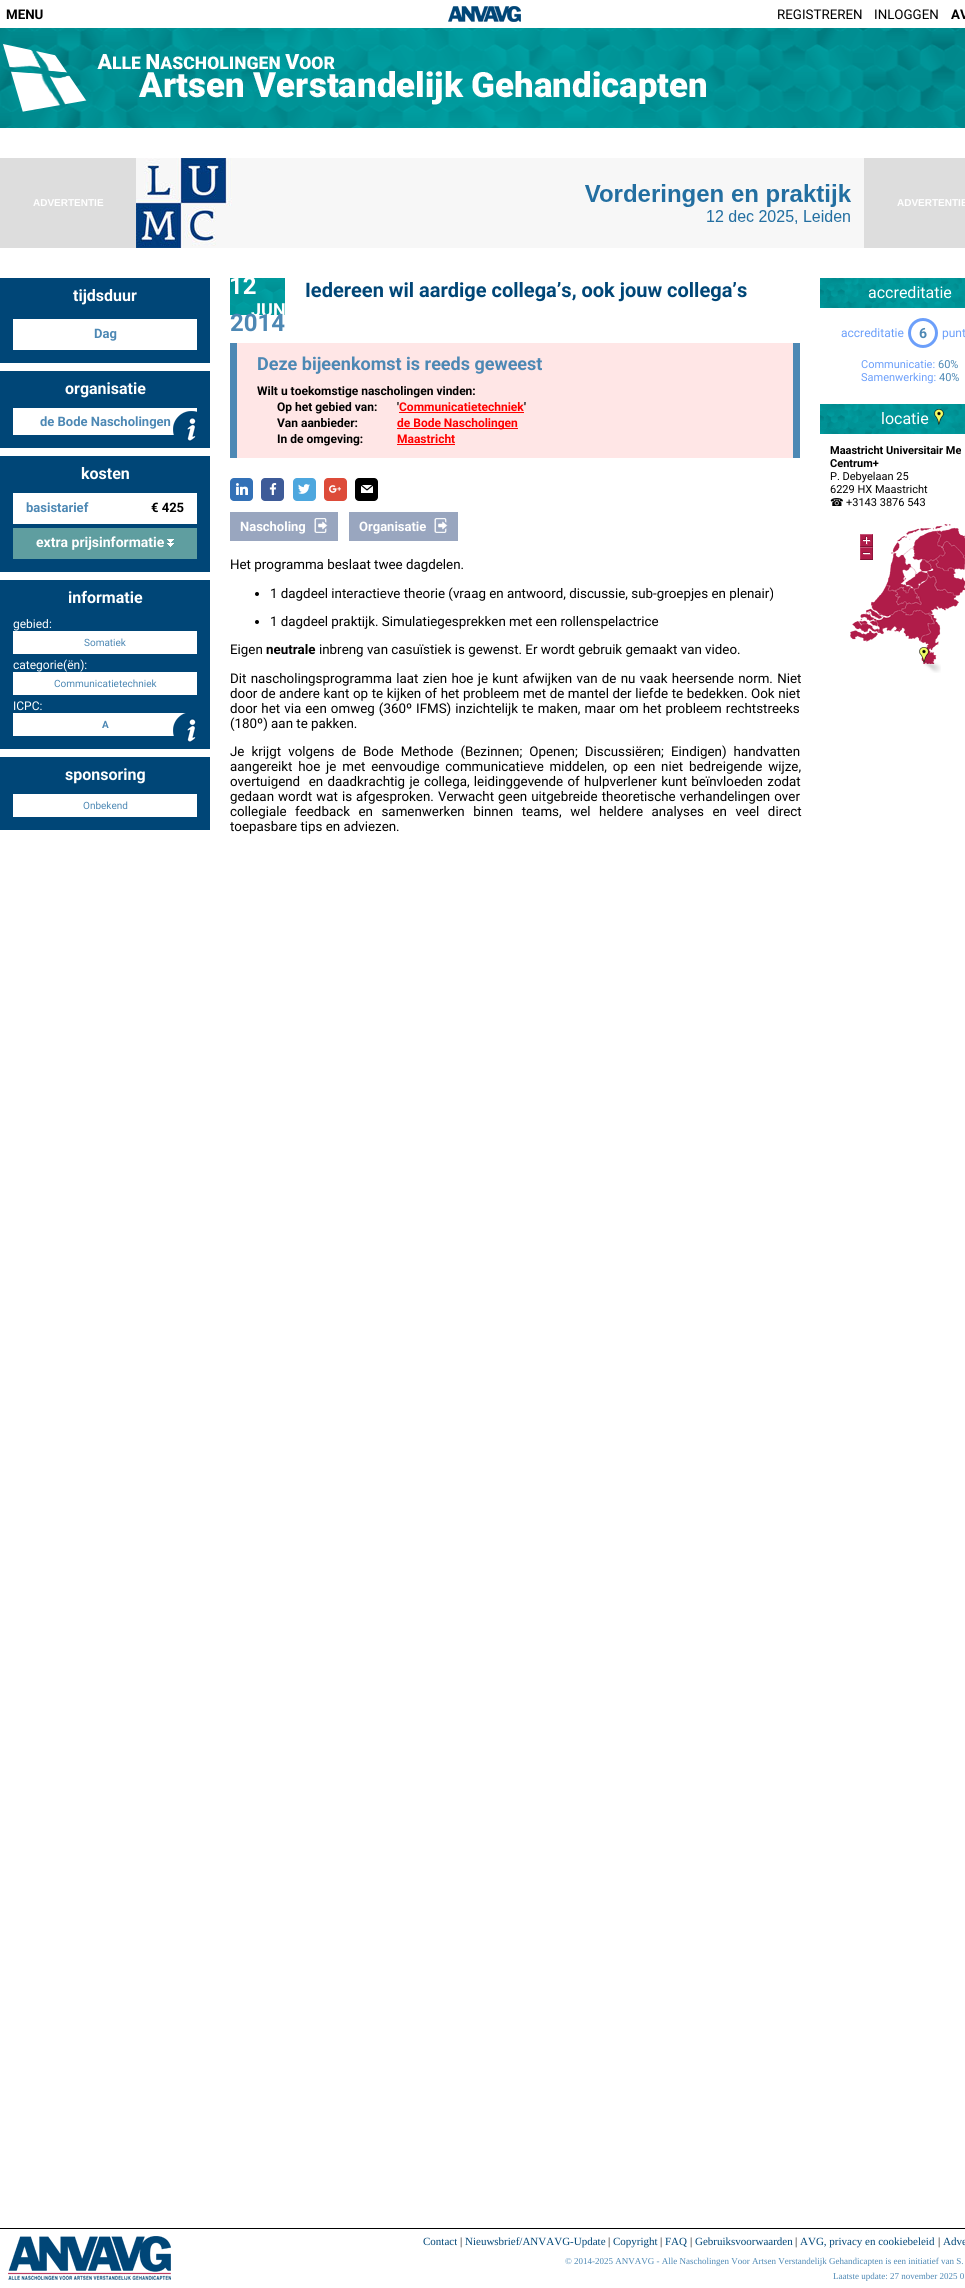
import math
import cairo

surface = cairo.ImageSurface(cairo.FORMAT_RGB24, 965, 2288)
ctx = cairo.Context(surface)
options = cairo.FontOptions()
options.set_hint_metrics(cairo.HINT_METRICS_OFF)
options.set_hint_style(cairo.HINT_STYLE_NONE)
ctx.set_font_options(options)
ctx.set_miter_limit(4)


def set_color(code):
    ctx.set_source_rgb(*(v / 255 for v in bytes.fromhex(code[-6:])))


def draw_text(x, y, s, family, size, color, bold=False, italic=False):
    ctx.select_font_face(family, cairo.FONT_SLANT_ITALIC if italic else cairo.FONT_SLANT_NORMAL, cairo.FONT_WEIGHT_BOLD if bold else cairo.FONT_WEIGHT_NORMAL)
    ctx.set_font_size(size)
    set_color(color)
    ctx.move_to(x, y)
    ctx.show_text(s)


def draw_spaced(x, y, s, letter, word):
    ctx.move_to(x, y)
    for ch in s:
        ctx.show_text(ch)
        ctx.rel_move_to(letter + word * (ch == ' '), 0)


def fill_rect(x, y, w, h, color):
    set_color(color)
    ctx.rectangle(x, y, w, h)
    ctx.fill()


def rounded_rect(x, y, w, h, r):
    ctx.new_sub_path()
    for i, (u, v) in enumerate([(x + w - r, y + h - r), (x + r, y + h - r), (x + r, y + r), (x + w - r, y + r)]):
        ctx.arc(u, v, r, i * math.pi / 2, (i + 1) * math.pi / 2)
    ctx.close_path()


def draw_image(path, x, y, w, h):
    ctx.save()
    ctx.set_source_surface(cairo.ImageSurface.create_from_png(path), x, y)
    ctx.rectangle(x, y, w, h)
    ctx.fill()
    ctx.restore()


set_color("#ffffff")
ctx.paint()
draw_text(6, 19, "MENU", "Roboto", 13.35, "#000000", bold=True)
draw_image("assets/img1.png", 448, 6, 73, 16)
draw_text(777, 19, "REGISTREREN", "Roboto", 13.35, "#000000")
draw_text(874, 19, "INLOGGEN", "Roboto", 13.35, "#000000")
draw_text(951, 19, "AV", "Roboto", 13.35, "#000000", bold=True)
draw_image("assets/img2.png", 0, 28, 965, 100)
draw_image("assets/img3.png", 2, 43, 704, 69)
fill_rect(0, 158, 965, 90, "#dddddd")
draw_text(33, 206, "ADVERTENTIE", "Liberation Sans", 10, "#ffffff", bold=True)
draw_image("assets/img4.png", 136, 158, 728, 90)
draw_text(897, 206, "ADVERTENTIE", "Liberation Sans", 10, "#ffffff", bold=True)
fill_rect(0, 278, 210, 85, "#004677")
draw_text(73, 301, "tijdsduur", "Roboto", 16, "#ffffff", bold=True)
fill_rect(13, 319, 184, 31, "#ffffff")
draw_text(94, 338, "Dag", "Roboto", 13, "#4d88b4", bold=True)
fill_rect(0, 371, 210, 77, "#004677")
draw_text(65, 394, "organisatie", "Roboto", 16, "#ffffff", bold=True)
fill_rect(13, 408, 184, 27, "#ffffff")
draw_text(40, 426, "de Bode Nascholingen", "Roboto", 13, "#4d88b4", bold=True)
draw_image("assets/img5.png", 173, 411, 24, 31)
fill_rect(0, 456, 210, 116, "#004677")
draw_text(81, 479, "kosten", "Roboto", 16, "#ffffff", bold=True)
fill_rect(13, 493, 184, 31, "#ffffff")
draw_text(26, 512, "basistarief", "Roboto", 13, "#4d88b4", bold=True)
draw_text(151, 512, "€ 425", "Roboto", 13, "#000000", bold=True)
fill_rect(13, 528, 184, 31, "#5f9ea0")
draw_text(36, 547, "extra prijsinformatie", "Roboto", 14, "#ffffff", bold=True)
draw_image("assets/img6.png", 167, 539, 7, 8)
fill_rect(0, 580, 210, 169, "#004677")
draw_text(68, 603, "informatie", "Roboto", 16, "#ffffff", bold=True)
draw_text(13, 628, "gebied:", "Roboto", 12, "#ffffff")
fill_rect(13, 631, 184, 23, "#ffffff")
draw_text(84, 646, "Somatiek", "Roboto", 10, "#4d88b4")
draw_text(13, 669, "categorie(ën):", "Roboto", 12, "#ffffff")
fill_rect(13, 672, 184, 23, "#ffffff")
draw_text(54, 687, "Communicatietechniek", "Roboto", 10, "#4d88b4")
draw_text(13, 710, "ICPC:", "Roboto", 12, "#ffffff")
fill_rect(13, 713, 173, 23, "#ffffff")
draw_text(102, 728, "A", "Roboto", 10, "#4d88b4", bold=True)
draw_image("assets/img7.png", 173, 713, 24, 30)
fill_rect(0, 757, 210, 73, "#004677")
draw_text(65, 780, "sponsoring", "Roboto", 16, "#ffffff", bold=True)
fill_rect(13, 794, 184, 23, "#ffffff")
draw_text(83, 809, "Onbekend", "Roboto", 10, "#4d88b4")
draw_image("assets/img8.png", 230, 278, 55, 37)
ctx.save()
ctx.rectangle(0, 278, 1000, 569)
ctx.clip()
draw_text(229, 294, "12", "Roboto", 24, "#ffffff", bold=True)
ctx.restore()
draw_text(251, 316, "JUN", "Roboto", 18, "#ffffff", bold=True)
draw_text(230, 331, "2014", "Roboto", 24, "#4d88b4", bold=True)
draw_text(305, 297, "Iedereen wil aardige collega’s, ook jouw collega’s", "Roboto", 20, "#004677", bold=True)
fill_rect(237, 343, 556, 115, "#ffe6e6")
fill_rect(793, 343, 7, 115, "#4d88b4")
fill_rect(230, 343, 7, 115, "#4d88b4")
draw_text(257, 370, "Deze bijeenkomst is reeds geweest", "Roboto", 18, "#4d88b4", bold=True)
draw_text(257, 395, "Wilt u toekomstige nascholingen vinden:", "Roboto", 12, "#000000", bold=True)
draw_text(277, 411, "Op het gebied van:", "Roboto", 12, "#000000", bold=True)
draw_text(397, 411, "'", "Roboto", 12, "#000000", bold=True)
draw_text(399, 411, "Communicatietechniek", "Roboto", 12, "#ff0000", bold=True)
fill_rect(399, 412, 125, 1, "#ff0000")
draw_text(524, 411, "'", "Roboto", 12, "#000000", bold=True)
draw_text(277, 427, "Van aanbieder:", "Roboto", 12, "#000000", bold=True)
fill_rect(397, 428, 121, 1, "#ff0000")
draw_text(397, 427, "de Bode Nascholingen", "Roboto", 12, "#ff0000", bold=True)
draw_text(277, 443, "In de omgeving:", "Roboto", 12, "#000000", bold=True)
draw_text(397, 443, "Maastricht", "Roboto", 12, "#ff0000", bold=True)
fill_rect(397, 444, 58, 1, "#ff0000")
set_color("#3371b7")
rounded_rect(230, 478, 23, 23, 4)
ctx.fill()
draw_image("assets/img9.png", 236, 483, 12, 12)
set_color("#3e5b98")
rounded_rect(261, 478, 23, 23, 4)
ctx.fill()
draw_image("assets/img10.png", 269, 483, 8, 12)
set_color("#4da7de")
rounded_rect(293, 478, 23, 23, 4)
ctx.fill()
draw_image("assets/img11.png", 298, 484, 12, 10)
set_color("#dd4b39")
rounded_rect(324, 478, 23, 23, 4)
ctx.fill()
draw_image("assets/img12.png", 329, 485, 12, 8)
set_color("#000000")
rounded_rect(355, 478, 23, 23, 4)
ctx.fill()
draw_image("assets/img13.png", 361, 485, 12, 8)
fill_rect(230, 512, 108, 29, "#99a6bf")
draw_text(240, 531, "Nascholing", "Roboto", 13, "#ffffff", bold=True)
draw_image("assets/img14.png", 314, 518, 14, 15)
fill_rect(349, 512, 109, 29, "#99a6bf")
draw_text(359, 531, "Organisatie", "Roboto", 13, "#ffffff", bold=True)
draw_image("assets/img14.png", 434, 518, 14, 15)
draw_text(230, 569, "Het programma beslaat twee dagdelen.", "Roboto", 13.35, "#000000")
ctx.new_path()
ctx.arc(257, 594, 2, 0, 2 * math.pi)
ctx.fill()
draw_text(270, 598, "1 dagdeel interactieve theorie (vraag en antwoord, discussie, sub-groepjes en plenair)", "Roboto", 13.35, "#000000")
ctx.new_path()
ctx.arc(257, 622, 2, 0, 2 * math.pi)
ctx.fill()
draw_text(270, 626, "1 dagdeel praktijk. Simulatiegesprekken met een rollenspelactrice", "Roboto", 13.35, "#000000")
draw_text(230, 654, "Eigen", "Roboto", 13.35, "#000000")
draw_text(266, 654, "neutrale", "Roboto", 13.35, "#000000", bold=True)
draw_text(319, 654, "inbreng van casuïstiek is gewenst. Er wordt gebruik gemaakt van video.", "Roboto", 13.35, "#000000")
draw_spaced(230, 683, "Dit nascholingsprogramma laat zien hoe je kunt afwijken van de nu vaak heersende norm. Niet", 0, 1)
draw_spaced(230, 698, "door de andere kant op te kijken of het probleem met de mantel der liefde te bedekken. Ook niet", 0, 0.3)
draw_spaced(230, 713, "door het via een omweg (360º IFMS) inzichtelijk te maken, maar om het probleem rechtstreeks", 0, 0.75)
draw_text(230, 728, "(180º) aan te pakken.", "Roboto", 13.35, "#000000")
draw_spaced(230, 756, "Je krijgt volgens de Bode Methode (Bezinnen; Openen; Discussiëren; Eindigen) handvatten", 0, 3.75)
draw_spaced(230, 771, "aangereikt hoe je met eenvoudige communicatieve middelen, op een niet bedreigende wijze,", 0, 2.5)
draw_spaced(230, 786, "overtuigend  en daadkrachtig je collega, leidinggevende of hulpverlener kunt beïnvloeden zodat", 0, 1)
draw_spaced(230, 801, "gedaan wordt wat is afgesproken. Verwacht geen uitgebreide theoretische verhandelingen over", 0, 0.75)
draw_spaced(230, 816, "collegiale feedback en samenwerken binnen teams, wel heldere analyses en veel direct", 0, 5.25)
draw_text(230, 831, "toepasbare tips en adviezen.", "Roboto", 13.35, "#000000")
draw_image("assets/img15.png", 820, 278, 145, 30)
draw_text(868, 298, "accreditatie", "Roboto", 16, "#ffffff")
draw_text(841, 337, "accreditatie", "Roboto", 12, "#6c9ffa")
ctx.new_path()
ctx.arc(923, 333, 13.5, 0, 2 * math.pi)
ctx.set_line_width(3)
ctx.stroke()
draw_text(919, 338, "6", "Roboto", 14, "#4d88b4", bold=True)
draw_text(942, 337, "punt", "Roboto", 12, "#6c9ffa")
draw_text(861, 368, "Communicatie:", "Roboto", 11, "#6c9ffa")
draw_text(938, 368, "60%", "Roboto", 11, "#4d88b4")
draw_text(861, 381, "Samenwerking:", "Roboto", 11, "#6c9ffa")
draw_text(939, 381, "40%", "Roboto", 11, "#4d88b4")
draw_image("assets/img15.png", 820, 404, 145, 30)
draw_text(881, 424, "locatie", "Roboto", 16, "#ffffff")
draw_image("assets/img16.png", 934, 409, 10, 16)
draw_text(830, 454, "Maastricht Universitair Me", "Roboto", 11, "#000000", bold=True)
draw_text(830, 467, "Centrum+", "Roboto", 11, "#000000", bold=True)
draw_text(830, 480, "P. Debyelaan 25", "Roboto", 11, "#000000")
draw_text(830, 493, "6229 HX Maastricht", "Roboto", 11, "#000000")
draw_text(830, 506, "☎", "DejaVu Sans", 11, "#000000")
draw_text(846, 506, "+3143 3876 543", "Roboto", 11, "#000000")
draw_image("assets/img17.png", 850, 524, 115, 140)
draw_image("assets/img18.png", 860, 534, 13, 26)
draw_image("assets/img19.png", 919, 647, 22, 26)
fill_rect(0, 2228, 965, 1, "#000000")
draw_image("assets/img20.png", 8, 2236, 163, 44)
draw_text(423, 2245, "Contact", "Liberation Serif", 11, "#004677")
draw_text(460, 2245, "|", "Liberation Serif", 11, "#000000")
draw_text(465, 2245, "Nieuwsbrief/ANVAVG-Update", "Liberation Serif", 11, "#004677")
draw_text(608, 2245, "|", "Liberation Serif", 11, "#000000")
draw_text(613, 2245, "Copyright", "Liberation Serif", 11, "#004677")
draw_text(660, 2245, "|", "Liberation Serif", 11, "#000000")
draw_text(665, 2245, "FAQ", "Liberation Serif", 11, "#004677")
draw_text(690, 2245, "|", "Liberation Serif", 11, "#000000")
draw_text(695, 2245, "Gebruiksvoorwaarden", "Liberation Serif", 11, "#004677")
draw_text(795, 2245, "|", "Liberation Serif", 11, "#000000")
draw_text(800, 2245, "AVG, privacy en cookiebeleid", "Liberation Serif", 11, "#004677")
draw_text(938, 2245, "|", "Liberation Serif", 11, "#000000")
draw_text(943, 2245, "Adve", "Liberation Serif", 11, "#004677")
draw_text(565, 2264, "© 2014-2025 ANVAVG - Alle Nascholingen Voor Artsen Verstandelijk Gehandicapten is een initiatief van S.", "Liberation Serif", 9, "#4d88b4")
draw_text(833, 2279, "Laatste update: 27 november 2025 0", "Liberation Serif", 9, "#4d88b4")
surface.write_to_png("output.png")
